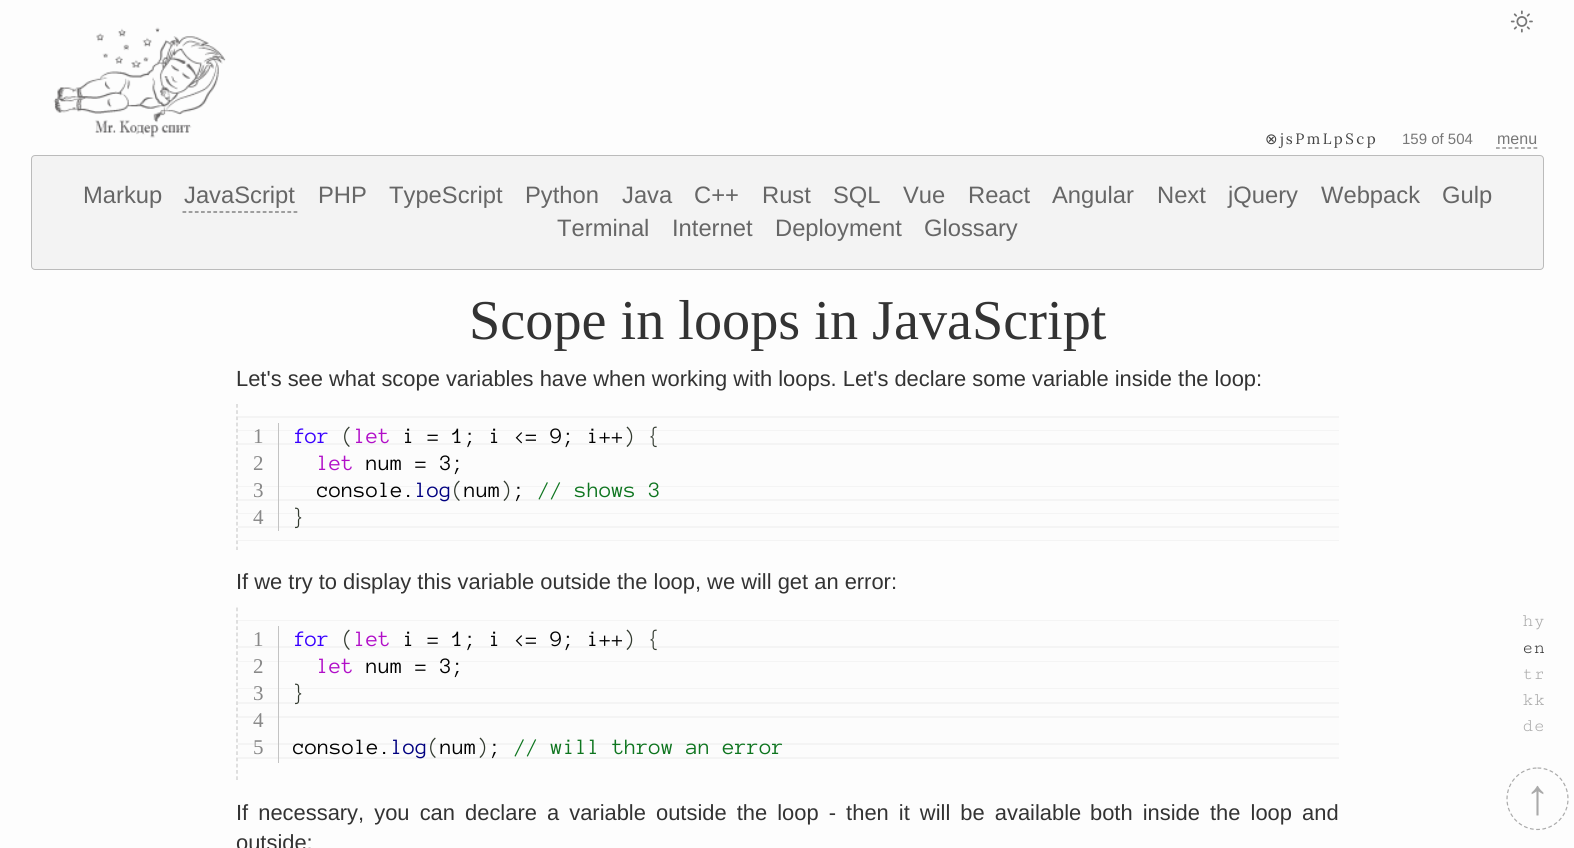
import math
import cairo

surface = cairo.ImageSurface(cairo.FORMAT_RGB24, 1574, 848)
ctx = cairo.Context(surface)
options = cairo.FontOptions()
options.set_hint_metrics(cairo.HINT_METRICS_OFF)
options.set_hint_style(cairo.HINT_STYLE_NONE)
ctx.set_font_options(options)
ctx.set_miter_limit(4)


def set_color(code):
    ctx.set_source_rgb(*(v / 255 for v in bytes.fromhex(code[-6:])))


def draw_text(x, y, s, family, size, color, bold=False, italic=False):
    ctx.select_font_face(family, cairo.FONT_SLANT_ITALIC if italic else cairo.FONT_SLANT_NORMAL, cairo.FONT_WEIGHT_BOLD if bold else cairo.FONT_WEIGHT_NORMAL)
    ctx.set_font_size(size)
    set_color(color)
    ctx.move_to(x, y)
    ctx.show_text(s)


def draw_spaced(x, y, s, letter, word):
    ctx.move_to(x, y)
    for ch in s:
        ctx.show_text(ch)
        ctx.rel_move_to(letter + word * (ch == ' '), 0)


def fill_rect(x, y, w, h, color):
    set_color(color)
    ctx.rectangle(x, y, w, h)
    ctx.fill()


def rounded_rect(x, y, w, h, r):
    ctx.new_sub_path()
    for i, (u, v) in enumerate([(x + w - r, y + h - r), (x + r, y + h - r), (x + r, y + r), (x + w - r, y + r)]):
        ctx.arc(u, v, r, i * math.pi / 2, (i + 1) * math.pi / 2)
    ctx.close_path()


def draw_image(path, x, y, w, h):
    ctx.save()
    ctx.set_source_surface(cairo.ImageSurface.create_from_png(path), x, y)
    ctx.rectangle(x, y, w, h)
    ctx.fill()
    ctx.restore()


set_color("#fdfdfd")
ctx.paint()
draw_image("assets/img1.png", 1510, 10, 23, 23)
draw_image("assets/img2.png", 53, 27, 173, 111)
ctx.select_font_face("DejaVu Sans")
ctx.set_font_size(15)
set_color("#444444")
draw_spaced(1265, 144, "⊗", 2.5, 0)
ctx.select_font_face("Lora")
draw_spaced(1280, 144, "jsPmLpScp", 2.5, 0)
draw_text(1402, 144, "159 of 504", "Liberation Sans", 15, "#777777")
ctx.new_path()
ctx.move_to(1496, 148)
ctx.line_to(1537.5, 148)
ctx.set_line_width(1.2)
ctx.set_dash([3.75, 2.5])
ctx.stroke()
draw_text(1497, 144, "menu", "Liberation Sans", 16, "#777777")
set_color("#f3f3f3")
rounded_rect(31.5, 155.5, 1512, 114, 3.5)
ctx.fill_preserve()
set_color("#bbbbbb")
ctx.set_line_width(1)
ctx.set_dash([])
ctx.stroke()
draw_text(83, 203, "Markup", "Liberation Sans", 23.75, "#666666")
ctx.new_path()
ctx.move_to(182.5, 212)
ctx.line_to(297.5, 212)
ctx.set_line_width(1.2)
ctx.set_dash([3.75, 2.42])
ctx.stroke()
draw_text(184, 203, "JavaScript", "Liberation Sans", 23.75, "#666666")
draw_text(318, 203, "PHP", "Liberation Sans", 23.75, "#666666")
draw_text(389, 203, "TypeScript", "Liberation Sans", 23.75, "#666666")
draw_text(525, 203, "Python", "Liberation Sans", 23.75, "#666666")
draw_text(622, 203, "Java", "Liberation Sans", 23.75, "#666666")
draw_text(694, 203, "C++", "Liberation Sans", 23.75, "#666666")
draw_text(762, 203, "Rust", "Liberation Sans", 23.75, "#666666")
draw_text(833, 203, "SQL", "Liberation Sans", 23.75, "#666666")
draw_text(903, 203, "Vue", "Liberation Sans", 23.75, "#666666")
draw_text(968, 203, "React", "Liberation Sans", 23.75, "#666666")
draw_text(1052, 203, "Angular", "Liberation Sans", 23.75, "#666666")
draw_text(1157, 203, "Next", "Liberation Sans", 23.75, "#666666")
draw_text(1228, 203, "jQuery", "Liberation Sans", 23.75, "#666666")
draw_text(1321, 203, "Webpack", "Liberation Sans", 23.75, "#666666")
draw_text(1442, 203, "Gulp", "Liberation Sans", 23.75, "#666666")
draw_text(557, 236, "Terminal", "Liberation Sans", 23.75, "#666666")
draw_text(672, 236, "Internet", "Liberation Sans", 23.75, "#666666")
draw_text(775, 236, "Deployment", "Liberation Sans", 23.75, "#666666")
draw_text(924, 236, "Glossary", "Liberation Sans", 23.75, "#666666")
draw_text(469, 339, "Scope in loops in JavaScript", "Liberation Serif", 56.25, "#333333")
draw_text(236, 386, "Let's see what scope variables have when working with loops. Let's declare some variable inside the loop:", "Liberation Sans", 21.9, "#333333")
gradient = cairo.LinearGradient(788, 404, 788, 555)
gradient.add_color_stop_rgba(0, 0.988, 0.988, 0.988, 1)
gradient.add_color_stop_rgba(0.08, 0.988, 0.988, 0.988, 1)
gradient.add_color_stop_rgba(0.08, 0.957, 0.957, 0.957, 1)
gradient.add_color_stop_rgba(0.09, 0.957, 0.957, 0.957, 1)
gradient.add_color_stop_rgba(0.09, 0.988, 0.988, 0.988, 1)
gradient.add_color_stop_rgba(0.17, 0.988, 0.988, 0.988, 1)
gradient.add_color_stop_rgba(0.17, 0.957, 0.957, 0.957, 1)
gradient.add_color_stop_rgba(0.18, 0.957, 0.957, 0.957, 1)
gradient.add_color_stop_rgba(0.18, 0.988, 0.988, 0.988, 1)
gradient.add_color_stop_rgba(0.26, 0.988, 0.988, 0.988, 1)
gradient.add_color_stop_rgba(0.26, 0.957, 0.957, 0.957, 1)
gradient.add_color_stop_rgba(0.27, 0.957, 0.957, 0.957, 1)
gradient.add_color_stop_rgba(0.27, 0.988, 0.988, 0.988, 1)
gradient.add_color_stop_rgba(0.36, 0.988, 0.988, 0.988, 1)
gradient.add_color_stop_rgba(0.36, 0.957, 0.957, 0.957, 1)
gradient.add_color_stop_rgba(0.36, 0.988, 0.988, 0.988, 1)
gradient.add_color_stop_rgba(0.45, 0.988, 0.988, 0.988, 1)
gradient.add_color_stop_rgba(0.45, 0.957, 0.957, 0.957, 1)
gradient.add_color_stop_rgba(0.45, 0.988, 0.988, 0.988, 1)
gradient.add_color_stop_rgba(0.54, 0.988, 0.988, 0.988, 1)
gradient.add_color_stop_rgba(0.54, 0.957, 0.957, 0.957, 1)
gradient.add_color_stop_rgba(0.55, 0.957, 0.957, 0.957, 1)
gradient.add_color_stop_rgba(0.55, 0.988, 0.988, 0.988, 1)
gradient.add_color_stop_rgba(0.63, 0.988, 0.988, 0.988, 1)
gradient.add_color_stop_rgba(0.63, 0.957, 0.957, 0.957, 1)
gradient.add_color_stop_rgba(0.64, 0.957, 0.957, 0.957, 1)
gradient.add_color_stop_rgba(0.64, 0.988, 0.988, 0.988, 1)
gradient.add_color_stop_rgba(0.72, 0.988, 0.988, 0.988, 1)
gradient.add_color_stop_rgba(0.72, 0.957, 0.957, 0.957, 1)
gradient.add_color_stop_rgba(0.73, 0.957, 0.957, 0.957, 1)
gradient.add_color_stop_rgba(0.73, 0.988, 0.988, 0.988, 1)
gradient.add_color_stop_rgba(0.81, 0.988, 0.988, 0.988, 1)
gradient.add_color_stop_rgba(0.81, 0.957, 0.957, 0.957, 1)
gradient.add_color_stop_rgba(0.82, 0.957, 0.957, 0.957, 1)
gradient.add_color_stop_rgba(0.82, 0.988, 0.988, 0.988, 1)
gradient.add_color_stop_rgba(0.9, 0.988, 0.988, 0.988, 1)
gradient.add_color_stop_rgba(0.9, 0.957, 0.957, 0.957, 1)
gradient.add_color_stop_rgba(0.91, 0.957, 0.957, 0.957, 1)
gradient.add_color_stop_rgba(0.91, 0.988, 0.988, 0.988, 1)
gradient.add_color_stop_rgba(0.99, 0.988, 0.988, 0.988, 1)
gradient.add_color_stop_rgba(0.99, 0.957, 0.957, 0.957, 1)
gradient.add_color_stop_rgba(1, 0.957, 0.957, 0.957, 1)
ctx.set_source(gradient)
ctx.rectangle(238, 416, 1101, 125)
ctx.fill()
ctx.new_path()
ctx.move_to(237, 404)
ctx.line_to(237, 550)
set_color("#cccccc")
ctx.set_dash([3.75, 2.45])
ctx.stroke()
fill_rect(278, 423, 1, 108, "#c3c3c3")
draw_text(253, 443, "1", "Liberation Serif", 21, "#888888")
draw_text(293, 443, "for", "Anonymous Pro", 22.5, "#3900ff")
draw_text(342, 443, "(", "Anonymous Pro", 22.5, "#333b30")
draw_text(354, 443, "let", "Anonymous Pro", 22.5, "#b10ec8")
draw_text(403, 443, "i = 1; i <= 9; i++", "Anonymous Pro", 22.5, "#000000")
draw_text(624, 443, ") {", "Anonymous Pro", 22.5, "#333b30")
draw_text(253, 470, "2", "Liberation Serif", 21, "#888888")
draw_text(317, 470, "let", "Anonymous Pro", 22.5, "#b10ec8")
draw_text(366, 470, "num = 3;", "Anonymous Pro", 22.5, "#000000")
draw_text(253, 497, "3", "Liberation Serif", 21, "#888888")
draw_text(317, 497, "console.", "Anonymous Pro", 22.5, "#000000")
draw_text(415, 497, "log", "Anonymous Pro", 22.5, "#000080")
draw_text(452, 497, "(", "Anonymous Pro", 22.5, "#333b30")
draw_text(464, 497, "num ;", "Anonymous Pro", 22.5, "#000000")
draw_text(501, 497, ")", "Anonymous Pro", 22.5, "#333b30")
draw_text(538, 497, "// shows 3", "Anonymous Pro", 22.5, "#0e751f")
draw_text(253, 524, "4", "Liberation Serif", 21, "#888888")
draw_text(293, 524, "}", "Anonymous Pro", 22.5, "#333b30")
draw_text(236, 589, "If we try to display this variable outside the loop, we will get an error:", "Liberation Sans", 21.9, "#333333")
gradient = cairo.LinearGradient(788, 607, 788, 786)
gradient.add_color_stop_rgba(0, 0.988, 0.988, 0.988, 1)
gradient.add_color_stop_rgba(0.07, 0.988, 0.988, 0.988, 1)
gradient.add_color_stop_rgba(0.07, 0.957, 0.957, 0.957, 1)
gradient.add_color_stop_rgba(0.08, 0.957, 0.957, 0.957, 1)
gradient.add_color_stop_rgba(0.08, 0.988, 0.988, 0.988, 1)
gradient.add_color_stop_rgba(0.15, 0.988, 0.988, 0.988, 1)
gradient.add_color_stop_rgba(0.15, 0.957, 0.957, 0.957, 1)
gradient.add_color_stop_rgba(0.15, 0.988, 0.988, 0.988, 1)
gradient.add_color_stop_rgba(0.22, 0.988, 0.988, 0.988, 1)
gradient.add_color_stop_rgba(0.22, 0.957, 0.957, 0.957, 1)
gradient.add_color_stop_rgba(0.23, 0.957, 0.957, 0.957, 1)
gradient.add_color_stop_rgba(0.23, 0.988, 0.988, 0.988, 1)
gradient.add_color_stop_rgba(0.3, 0.988, 0.988, 0.988, 1)
gradient.add_color_stop_rgba(0.3, 0.957, 0.957, 0.957, 1)
gradient.add_color_stop_rgba(0.31, 0.957, 0.957, 0.957, 1)
gradient.add_color_stop_rgba(0.31, 0.988, 0.988, 0.988, 1)
gradient.add_color_stop_rgba(0.38, 0.988, 0.988, 0.988, 1)
gradient.add_color_stop_rgba(0.38, 0.957, 0.957, 0.957, 1)
gradient.add_color_stop_rgba(0.38, 0.988, 0.988, 0.988, 1)
gradient.add_color_stop_rgba(0.45, 0.988, 0.988, 0.988, 1)
gradient.add_color_stop_rgba(0.45, 0.957, 0.957, 0.957, 1)
gradient.add_color_stop_rgba(0.46, 0.957, 0.957, 0.957, 1)
gradient.add_color_stop_rgba(0.46, 0.988, 0.988, 0.988, 1)
gradient.add_color_stop_rgba(0.53, 0.988, 0.988, 0.988, 1)
gradient.add_color_stop_rgba(0.53, 0.957, 0.957, 0.957, 1)
gradient.add_color_stop_rgba(0.54, 0.957, 0.957, 0.957, 1)
gradient.add_color_stop_rgba(0.54, 0.988, 0.988, 0.988, 1)
gradient.add_color_stop_rgba(0.61, 0.988, 0.988, 0.988, 1)
gradient.add_color_stop_rgba(0.61, 0.957, 0.957, 0.957, 1)
gradient.add_color_stop_rgba(0.62, 0.957, 0.957, 0.957, 1)
gradient.add_color_stop_rgba(0.62, 0.988, 0.988, 0.988, 1)
gradient.add_color_stop_rgba(0.69, 0.988, 0.988, 0.988, 1)
gradient.add_color_stop_rgba(0.69, 0.957, 0.957, 0.957, 1)
gradient.add_color_stop_rgba(0.69, 0.988, 0.988, 0.988, 1)
gradient.add_color_stop_rgba(0.76, 0.988, 0.988, 0.988, 1)
gradient.add_color_stop_rgba(0.76, 0.957, 0.957, 0.957, 1)
gradient.add_color_stop_rgba(0.77, 0.957, 0.957, 0.957, 1)
gradient.add_color_stop_rgba(0.77, 0.988, 0.988, 0.988, 1)
gradient.add_color_stop_rgba(0.84, 0.988, 0.988, 0.988, 1)
gradient.add_color_stop_rgba(0.84, 0.957, 0.957, 0.957, 1)
gradient.add_color_stop_rgba(0.85, 0.957, 0.957, 0.957, 1)
gradient.add_color_stop_rgba(0.85, 0.988, 0.988, 0.988, 1)
gradient.add_color_stop_rgba(0.92, 0.988, 0.988, 0.988, 1)
gradient.add_color_stop_rgba(0.92, 0.957, 0.957, 0.957, 1)
gradient.add_color_stop_rgba(0.92, 0.988, 0.988, 0.988, 1)
gradient.add_color_stop_rgba(0.99, 0.988, 0.988, 0.988, 1)
gradient.add_color_stop_rgba(0.99, 0.957, 0.957, 0.957, 1)
gradient.add_color_stop_rgba(1, 0.957, 0.957, 0.957, 1)
ctx.set_source(gradient)
ctx.rectangle(238, 620, 1101, 139)
ctx.fill()
ctx.new_path()
ctx.move_to(237, 607.5)
ctx.line_to(237, 780)
set_color("#cccccc")
ctx.set_dash([3.75, 2.5])
ctx.stroke()
fill_rect(278, 626, 1, 137, "#c3c3c3")
draw_text(253, 646, "1", "Liberation Serif", 21, "#888888")
draw_text(293, 646, "for", "Anonymous Pro", 22.5, "#3900ff")
draw_text(342, 646, "(", "Anonymous Pro", 22.5, "#333b30")
draw_text(354, 646, "let", "Anonymous Pro", 22.5, "#b10ec8")
draw_text(403, 646, "i = 1; i <= 9; i++", "Anonymous Pro", 22.5, "#000000")
draw_text(624, 646, ") {", "Anonymous Pro", 22.5, "#333b30")
draw_text(253, 673, "2", "Liberation Serif", 21, "#888888")
draw_text(317, 673, "let", "Anonymous Pro", 22.5, "#b10ec8")
draw_text(366, 673, "num = 3;", "Anonymous Pro", 22.5, "#000000")
draw_text(253, 700, "3", "Liberation Serif", 21, "#888888")
draw_text(293, 700, "}", "Anonymous Pro", 22.5, "#333b30")
draw_text(253, 727, "4", "Liberation Serif", 21, "#888888")
draw_text(253, 754, "5", "Liberation Serif", 21, "#888888")
draw_text(293, 754, "console.", "Anonymous Pro", 22.5, "#000000")
draw_text(391, 754, "log", "Anonymous Pro", 22.5, "#000080")
draw_text(428, 754, "(", "Anonymous Pro", 22.5, "#333b30")
draw_text(440, 754, "num ;", "Anonymous Pro", 22.5, "#000000")
draw_text(477, 754, ")", "Anonymous Pro", 22.5, "#333b30")
draw_text(514, 754, "// will throw an error", "Anonymous Pro", 22.5, "#0e751f")
ctx.select_font_face("Liberation Sans")
ctx.set_font_size(21.9)
set_color("#333333")
draw_spaced(236, 820, "If necessary, you can declare a variable", 0, 4)
draw_spaced(656, 820, "outside the loop - then it will be available", 0, 4)
draw_spaced(1090, 820, "both inside the loop and", 0, 4)
draw_text(236, 850, "outside:", "Liberation Sans", 21.9, "#333333")
draw_text(1522, 626, "hy", "Cutive Mono", 19, "#aaaaaa")
draw_text(1522, 653, "en", "Cutive Mono", 19, "#333333")
draw_text(1522, 679, "tr", "Cutive Mono", 19, "#aaaaaa")
draw_text(1522, 705, "kk", "Cutive Mono", 19, "#aaaaaa")
draw_text(1522, 731, "de", "Cutive Mono", 19, "#aaaaaa")
ctx.new_path()
ctx.move_to(1537.5, 768)
ctx.curve_to(1554.5, 768, 1568, 782, 1568, 799)
ctx.curve_to(1568, 815.5, 1554.5, 829.5, 1537.5, 829.5)
ctx.curve_to(1520.5, 829.5, 1507, 815.5, 1507, 799)
ctx.curve_to(1507, 782, 1520.5, 768, 1537.5, 768)
ctx.close_path()
ctx.stroke()
draw_text(1525, 814, "↑", "Liberation Serif", 50, "#aaaaaa")
surface.write_to_png("output.png")
